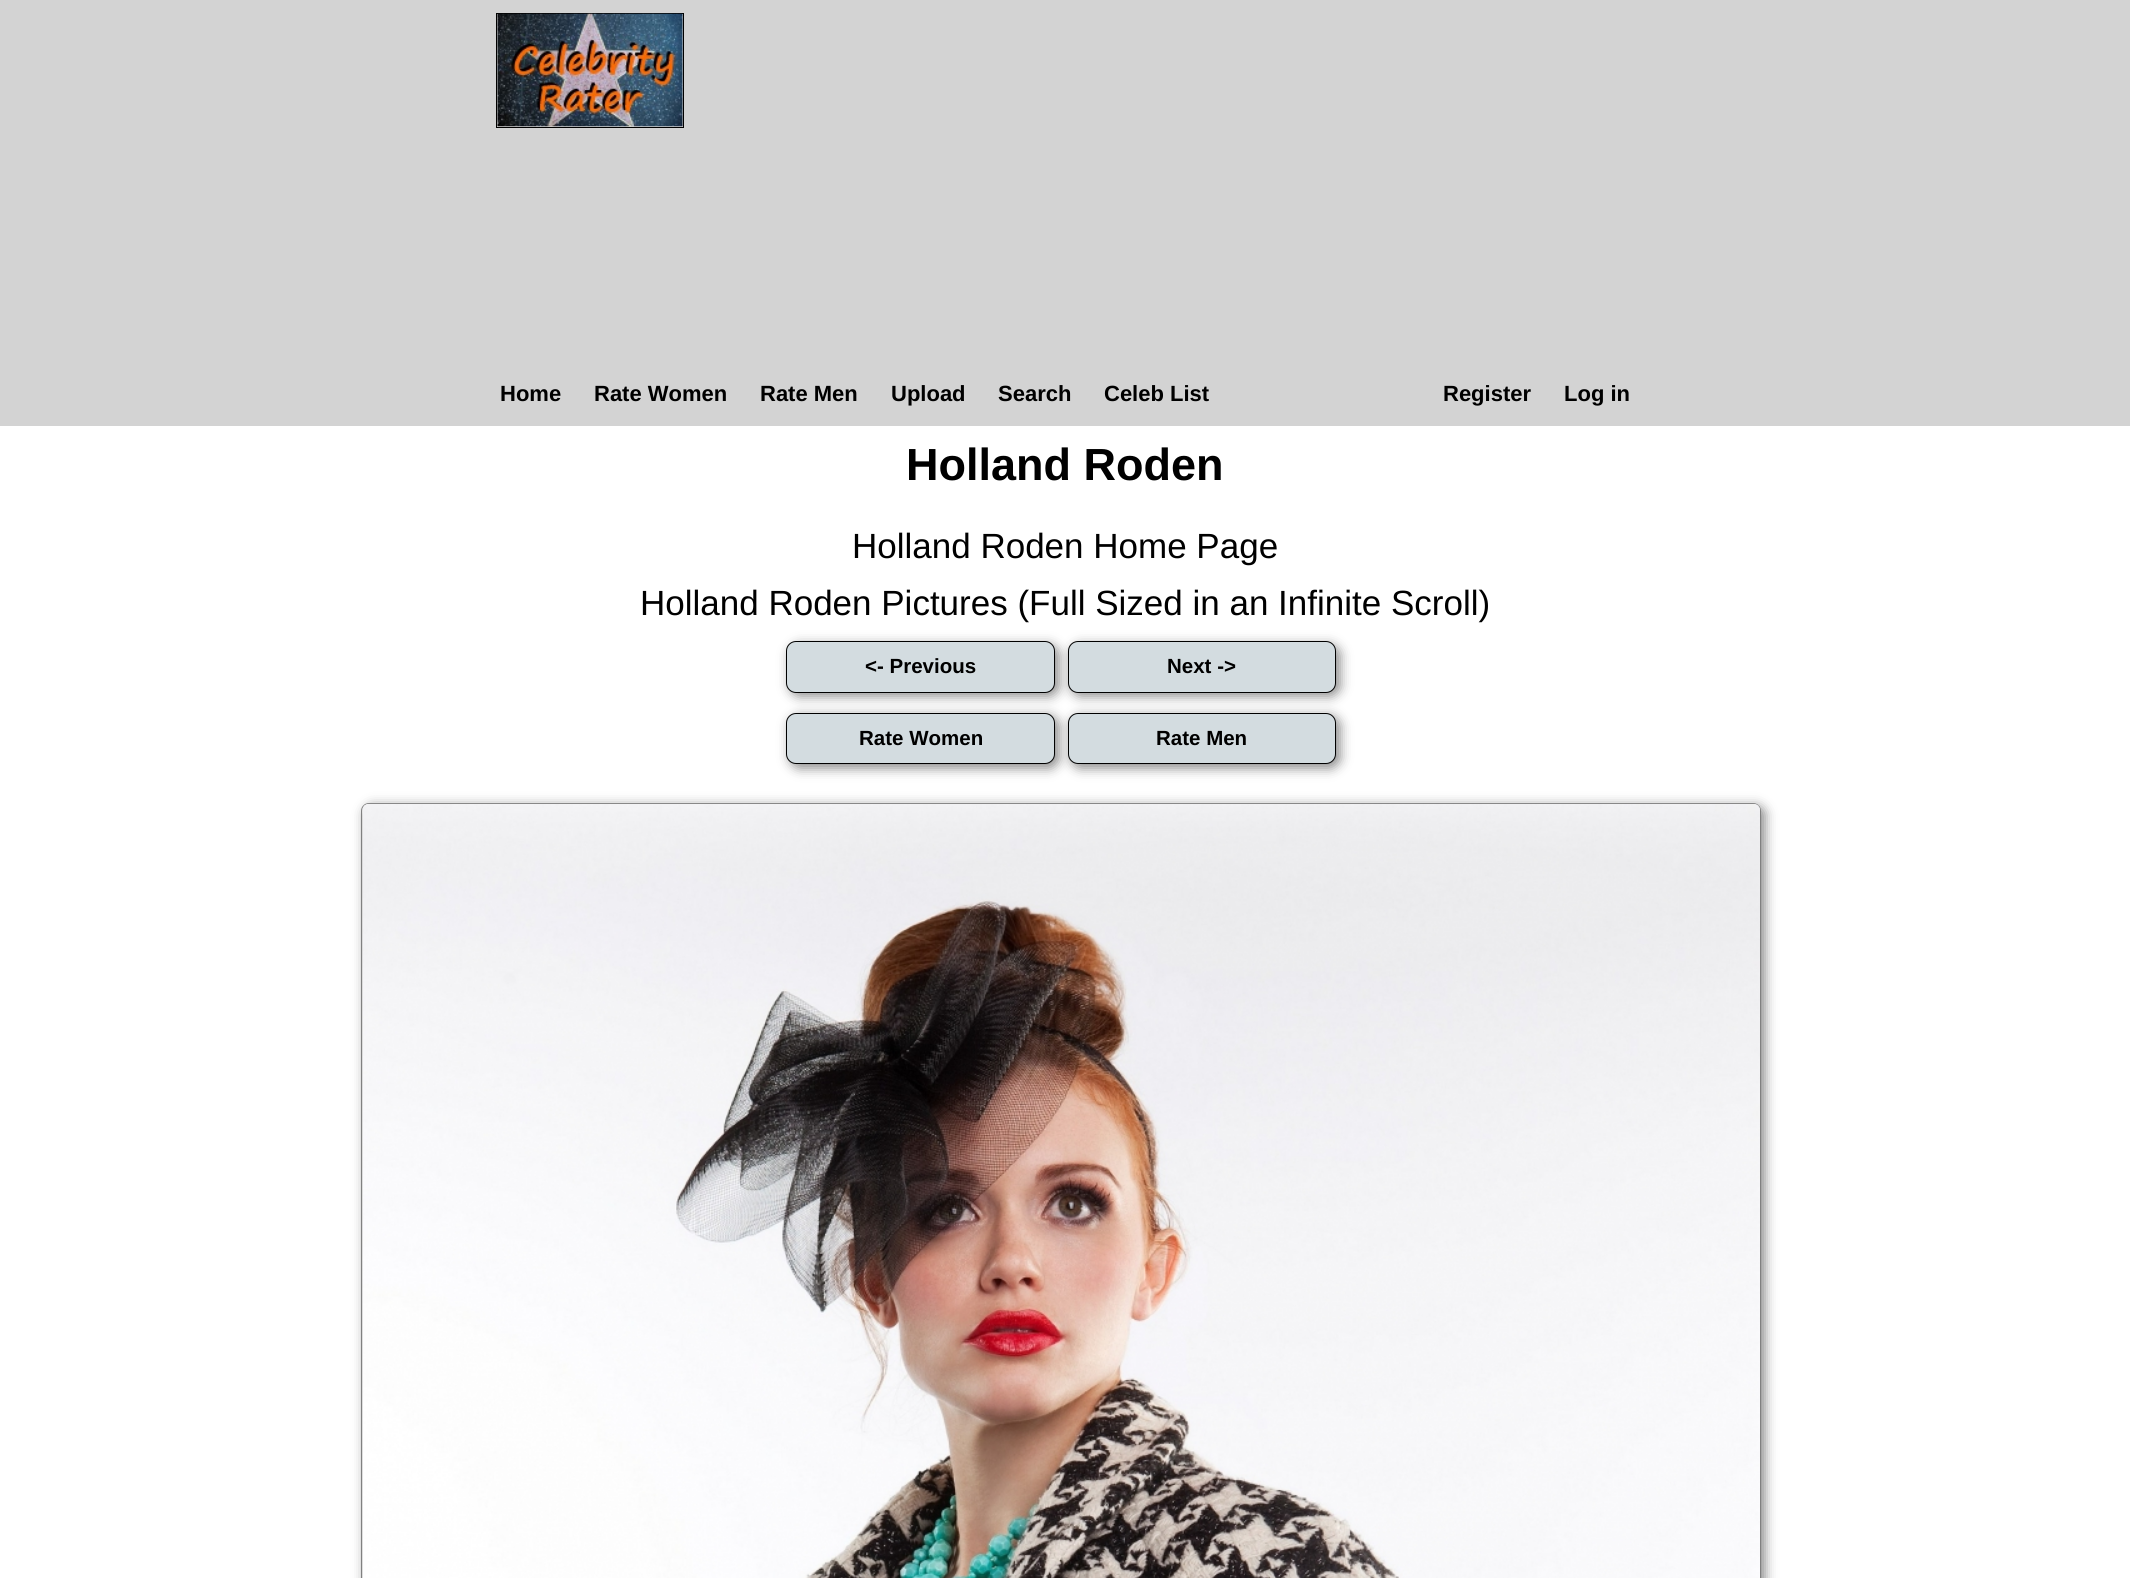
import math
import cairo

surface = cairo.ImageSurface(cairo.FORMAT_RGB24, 2130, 1578)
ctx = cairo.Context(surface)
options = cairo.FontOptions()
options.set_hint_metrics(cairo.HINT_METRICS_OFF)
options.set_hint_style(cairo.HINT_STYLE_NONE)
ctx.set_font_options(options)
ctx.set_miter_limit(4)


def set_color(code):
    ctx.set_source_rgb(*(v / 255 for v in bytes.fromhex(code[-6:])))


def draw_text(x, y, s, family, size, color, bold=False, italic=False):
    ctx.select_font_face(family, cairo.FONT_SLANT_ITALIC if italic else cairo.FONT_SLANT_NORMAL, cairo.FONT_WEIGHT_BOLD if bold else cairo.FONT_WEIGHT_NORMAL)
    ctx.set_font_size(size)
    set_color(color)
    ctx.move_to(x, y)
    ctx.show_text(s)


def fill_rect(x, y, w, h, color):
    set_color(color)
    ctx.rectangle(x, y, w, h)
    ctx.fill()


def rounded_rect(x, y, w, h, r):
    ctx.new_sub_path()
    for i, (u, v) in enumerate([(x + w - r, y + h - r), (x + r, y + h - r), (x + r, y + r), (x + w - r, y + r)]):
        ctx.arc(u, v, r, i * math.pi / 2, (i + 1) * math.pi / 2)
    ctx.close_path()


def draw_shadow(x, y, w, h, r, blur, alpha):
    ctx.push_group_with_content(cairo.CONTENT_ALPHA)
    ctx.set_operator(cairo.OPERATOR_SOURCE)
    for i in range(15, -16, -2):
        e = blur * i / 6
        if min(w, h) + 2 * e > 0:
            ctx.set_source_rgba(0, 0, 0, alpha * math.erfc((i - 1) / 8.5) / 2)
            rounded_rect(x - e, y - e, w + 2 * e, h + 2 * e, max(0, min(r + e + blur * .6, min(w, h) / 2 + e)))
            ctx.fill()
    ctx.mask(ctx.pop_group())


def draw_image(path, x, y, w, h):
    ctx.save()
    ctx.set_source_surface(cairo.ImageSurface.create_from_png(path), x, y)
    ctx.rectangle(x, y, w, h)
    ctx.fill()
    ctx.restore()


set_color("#ffffff")
ctx.paint()
fill_rect(0, 0, 2130, 426, "#d3d3d3")
ctx.rectangle(496.5, 13.5, 187, 114)
set_color("#000000")
ctx.set_line_width(1)
ctx.stroke()
draw_image("assets/img1.png", 497, 13, 186, 114)
draw_text(500, 401, "Home", "Liberation Sans", 22, "#000000", bold=True)
draw_text(594, 401, "Rate Women", "Liberation Sans", 22, "#000000", bold=True)
draw_text(760, 401, "Rate Men", "Liberation Sans", 22, "#000000", bold=True)
draw_text(891, 401, "Upload", "Liberation Sans", 22, "#000000", bold=True)
draw_text(998, 401, "Search", "Liberation Sans", 22, "#000000", bold=True)
draw_text(1104, 401, "Celeb List", "Liberation Sans", 22, "#000000", bold=True)
draw_text(1443, 401, "Register", "Liberation Sans", 22, "#000000", bold=True)
draw_text(1564, 401, "Log in", "Liberation Sans", 22, "#000000", bold=True)
draw_text(906, 480, "Holland Roden", "Liberation Sans", 45, "#000000", bold=True)
draw_text(852, 558, "Holland Roden Home Page", "Liberation Sans", 35, "#000000")
draw_text(640, 615, "Holland Roden Pictures (Full Sized in an Infinite Scroll)", "Liberation Sans", 35, "#000000")
set_color("#888888")
draw_shadow(790, 645, 269, 51, 10, 6, 1)
set_color("#d3dce0")
rounded_rect(786.5, 641.5, 268, 51, 9.5)
ctx.fill_preserve()
set_color("#000000")
ctx.stroke()
draw_text(865, 673, "<- Previous", "Liberation Sans", 20.5, "#000000", bold=True)
set_color("#888888")
draw_shadow(1071, 645, 269, 51, 10, 6, 1)
set_color("#d3dce0")
rounded_rect(1068.5, 641.5, 267, 51, 9.5)
ctx.fill_preserve()
set_color("#000000")
ctx.stroke()
draw_text(1167, 673, "Next ->", "Liberation Sans", 20.5, "#000000", bold=True)
set_color("#888888")
draw_shadow(790, 716, 269, 52, 10, 6, 1)
set_color("#d3dce0")
rounded_rect(786.5, 713.5, 268, 50, 9.5)
ctx.fill_preserve()
set_color("#000000")
ctx.stroke()
draw_text(859, 745, "Rate Women", "Liberation Sans", 20.5, "#000000", bold=True)
set_color("#888888")
draw_shadow(1071, 716, 269, 52, 10, 6, 1)
set_color("#d3dce0")
rounded_rect(1068.5, 713.5, 267, 50, 9.5)
ctx.fill_preserve()
set_color("#000000")
ctx.stroke()
draw_text(1156, 745, "Rate Men", "Liberation Sans", 20.5, "#000000", bold=True)
set_color("#888888")
draw_shadow(365, 806, 1400, 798, 8, 6, 1)
rounded_rect(361.5, 803.5, 1399, 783, 7.5)
set_color("#808080")
ctx.stroke()
draw_image("assets/img2.png", 362, 803, 1398, 775)
surface.write_to_png("output.png")
